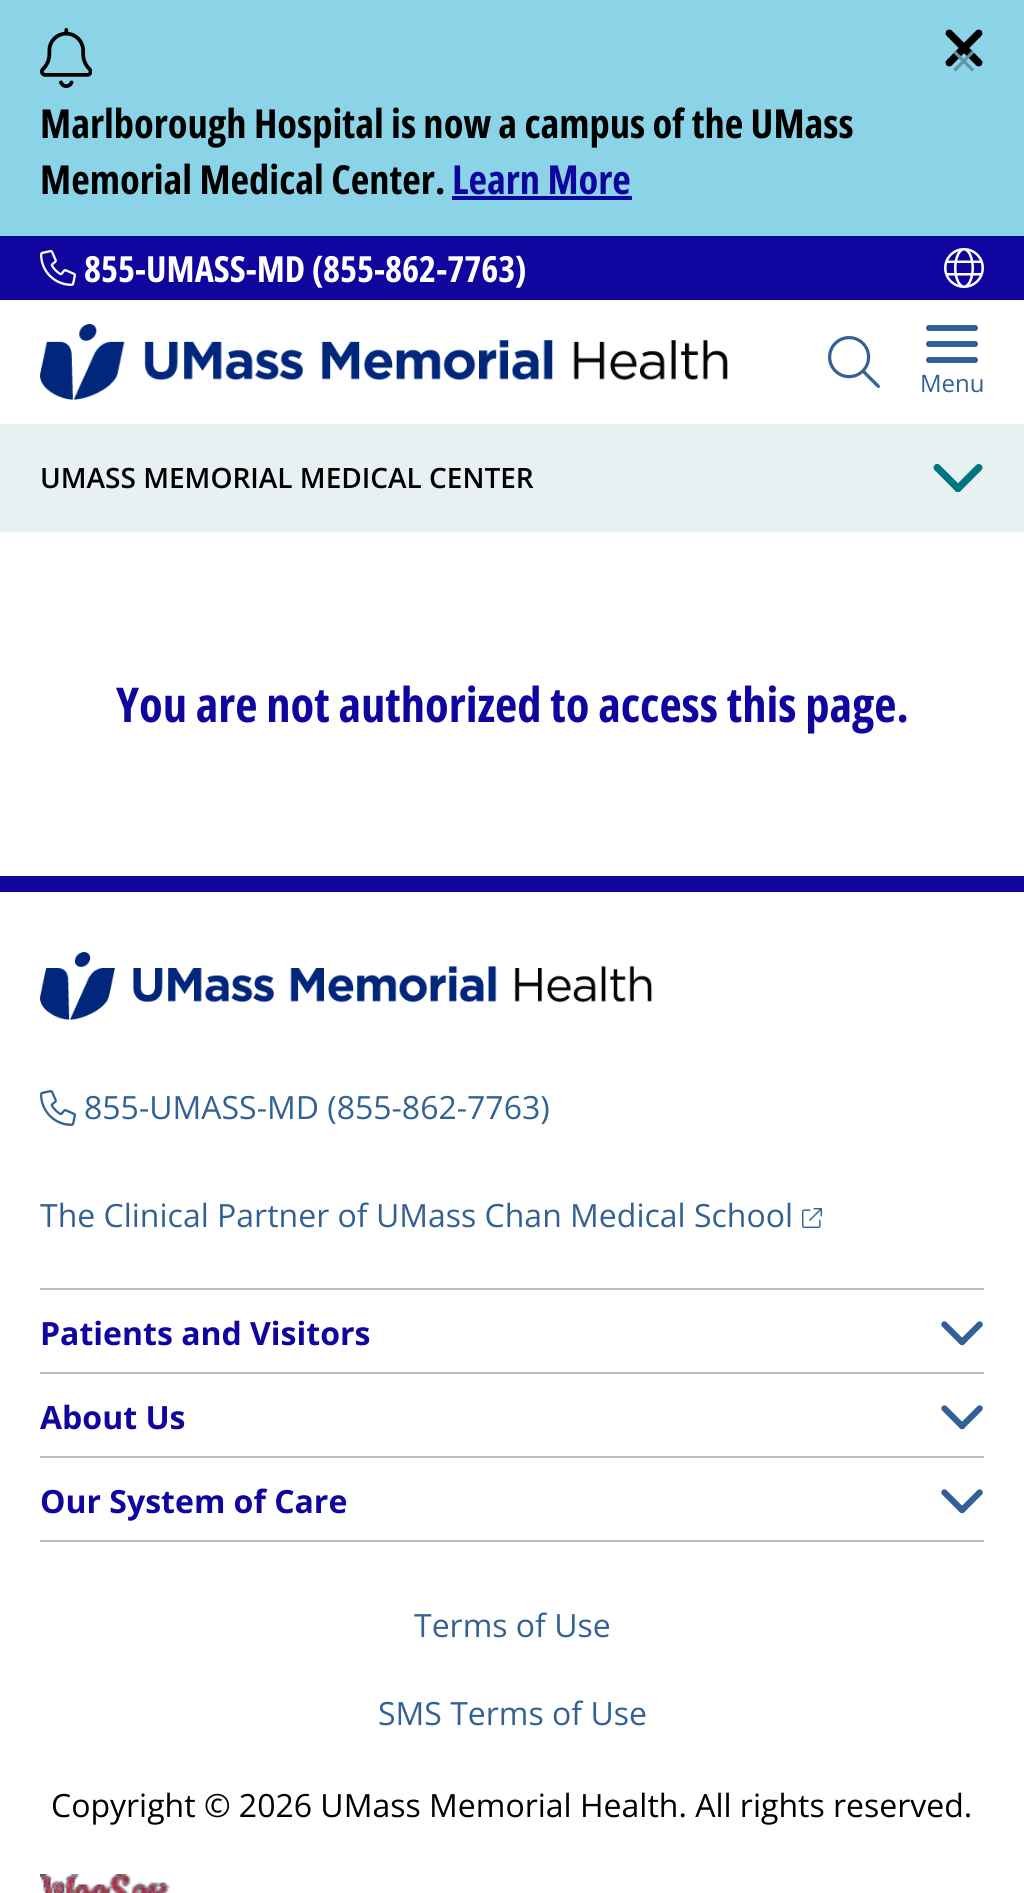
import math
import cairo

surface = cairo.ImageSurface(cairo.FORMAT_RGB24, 1024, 1893)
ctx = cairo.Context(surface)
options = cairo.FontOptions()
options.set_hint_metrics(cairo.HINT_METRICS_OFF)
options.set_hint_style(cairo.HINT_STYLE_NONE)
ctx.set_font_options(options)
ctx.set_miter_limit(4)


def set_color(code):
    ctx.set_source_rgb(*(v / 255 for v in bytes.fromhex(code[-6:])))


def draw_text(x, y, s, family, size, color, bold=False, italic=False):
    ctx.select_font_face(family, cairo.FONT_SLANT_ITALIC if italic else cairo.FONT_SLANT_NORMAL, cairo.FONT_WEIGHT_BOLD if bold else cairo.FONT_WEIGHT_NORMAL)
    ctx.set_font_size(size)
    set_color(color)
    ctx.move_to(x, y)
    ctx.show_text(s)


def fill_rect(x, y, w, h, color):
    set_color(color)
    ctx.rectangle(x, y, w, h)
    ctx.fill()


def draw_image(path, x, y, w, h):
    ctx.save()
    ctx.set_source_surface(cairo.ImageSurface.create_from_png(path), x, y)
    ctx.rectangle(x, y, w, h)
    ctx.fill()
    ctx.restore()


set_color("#ffffff")
ctx.paint()
fill_rect(0, 0, 1024, 236, "#8bd3e6")
draw_image("assets/img1.png", 945, 29, 38, 38)
draw_text(950, 78, "×", "Open Sans", 48, "#6295a2")
draw_image("assets/img2.png", 40, 28, 52, 60)
draw_text(40, 138, "Marlborough Hospital is now a campus of the UMass", "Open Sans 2", 40, "#000000", bold=True)
draw_text(40, 194, "Memorial Medical Center.", "Open Sans 2", 40, "#000000", bold=True)
draw_text(452, 194, "Learn More", "Open Sans 2", 40, "#10069f", bold=True)
fill_rect(452, 196, 180, 4, "#10069f")
fill_rect(0, 236, 1024, 64, "#10069f")
draw_image("assets/img3.png", 40, 250, 36, 36)
draw_text(84, 282, "855-UMASS-MD (855-862-7763)", "Open Sans 2", 36, "#ffffff", bold=True)
draw_image("assets/img4.png", 944, 248, 40, 40)
draw_image("assets/img5.png", 40, 324, 688, 76)
draw_image("assets/img6.png", 828, 336, 52, 52)
draw_image("assets/img7.png", 926, 325, 52, 38)
draw_text(920, 392, "Menu", "Open Sans", 24, "#326295")
fill_rect(0, 424, 1024, 108, "#e8f1f2")
draw_text(40, 488, "UMASS MEMORIAL MEDICAL CENTER", "Open Sans SemiBold", 28, "#000000")
draw_image("assets/img8.png", 933, 463, 50, 30)
draw_text(116, 722, "You are not authorized to access this page.", "Open Sans 2", 48, "#10069f", bold=True)
fill_rect(0, 876, 1024, 16, "#10069f")
draw_image("assets/img9.png", 40, 952, 612, 68)
draw_image("assets/img10.png", 40, 1090, 36, 36)
draw_text(84, 1119, "855-UMASS-MD (855-862-7763)", "Open Sans", 32, "#326295")
draw_text(40, 1227, "The Clinical Partner of UMass Chan Medical School", "Open Sans", 32, "#326295")
draw_image("assets/img11.png", 802, 1208, 20, 20)
fill_rect(40, 1288, 944, 2, "#bfbfbf")
fill_rect(40, 1372, 944, 2, "#bfbfbf")
draw_text(40, 1345, "Patients and Visitors", "Open Sans", 32, "#10069f", bold=True)
draw_image("assets/img12.png", 941, 1321, 42, 25)
fill_rect(40, 1456, 944, 2, "#bfbfbf")
draw_text(40, 1429, "About Us", "Open Sans", 32, "#10069f", bold=True)
draw_image("assets/img12.png", 941, 1405, 42, 25)
fill_rect(40, 1540, 944, 2, "#bfbfbf")
draw_text(40, 1513, "Our System of Care", "Open Sans", 32, "#10069f", bold=True)
draw_image("assets/img12.png", 941, 1489, 42, 25)
draw_text(414, 1637, "Terms of Use", "Open Sans", 32, "#326295")
draw_text(378, 1725, "SMS Terms of Use", "Open Sans", 32, "#326295")
draw_text(51, 1817, "Copyright © 2026 UMass Memorial Health. All rights reserved.", "Open Sans", 32, "#000000")
draw_image("assets/img13.png", 40, 1874, 130, 19)
surface.write_to_png("output.png")
